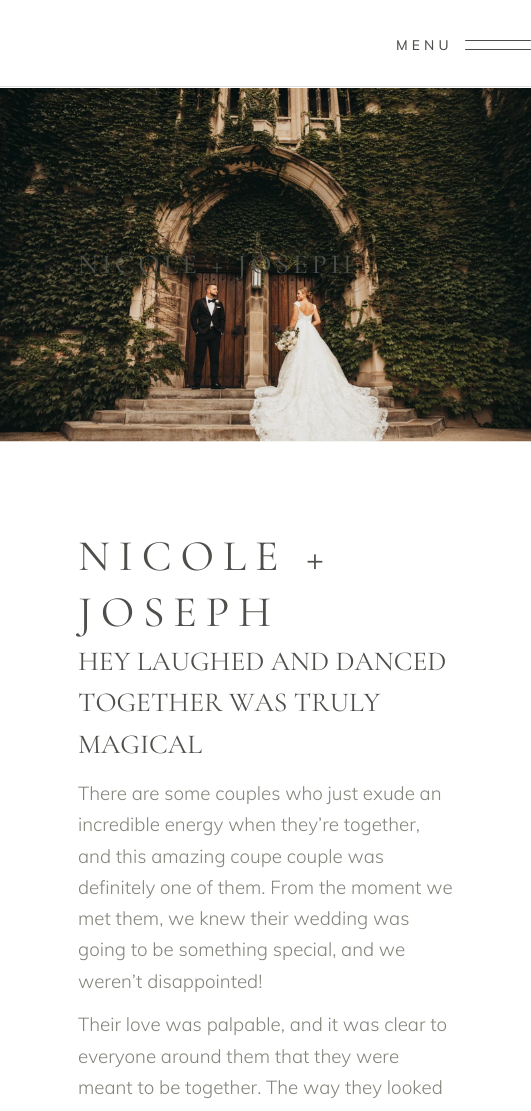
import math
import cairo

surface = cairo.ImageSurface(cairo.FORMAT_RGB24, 531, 1111)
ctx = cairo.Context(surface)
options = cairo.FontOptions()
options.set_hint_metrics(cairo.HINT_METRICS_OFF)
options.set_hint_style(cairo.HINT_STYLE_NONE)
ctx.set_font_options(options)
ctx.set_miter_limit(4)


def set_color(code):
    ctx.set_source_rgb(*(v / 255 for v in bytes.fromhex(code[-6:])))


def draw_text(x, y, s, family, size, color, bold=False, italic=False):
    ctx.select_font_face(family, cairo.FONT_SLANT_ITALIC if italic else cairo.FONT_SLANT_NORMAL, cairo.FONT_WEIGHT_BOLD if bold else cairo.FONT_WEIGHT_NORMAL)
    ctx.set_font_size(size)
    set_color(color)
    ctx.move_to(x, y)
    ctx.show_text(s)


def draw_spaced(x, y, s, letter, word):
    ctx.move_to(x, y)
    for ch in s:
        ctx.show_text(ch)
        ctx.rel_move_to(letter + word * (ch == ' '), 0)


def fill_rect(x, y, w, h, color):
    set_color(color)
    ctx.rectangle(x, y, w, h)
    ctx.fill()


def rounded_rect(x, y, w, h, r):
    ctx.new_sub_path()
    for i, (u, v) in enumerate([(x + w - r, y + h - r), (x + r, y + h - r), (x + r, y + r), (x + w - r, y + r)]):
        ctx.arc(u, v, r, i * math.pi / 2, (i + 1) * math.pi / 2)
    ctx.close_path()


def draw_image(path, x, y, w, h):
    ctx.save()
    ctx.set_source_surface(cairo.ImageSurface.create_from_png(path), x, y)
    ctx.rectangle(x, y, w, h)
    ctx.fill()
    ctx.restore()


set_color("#ffffff")
ctx.paint()
fill_rect(0, 86, 531, 1, "#e1e1e1")
ctx.select_font_face("Muli Medium")
ctx.set_font_size(13.75)
set_color("#4d504a")
draw_spaced(396, 50, "MENU", 4.1, 0)
rounded_rect(465, 40, 66, 1, 0.5)
ctx.fill()
rounded_rect(465, 49, 66, 1, 0.5)
ctx.fill()
draw_image("assets/img1.png", 0, 88, 531, 354)
ctx.select_font_face("Cormorant Garamond")
ctx.set_font_size(27.5)
draw_spaced(78, 273, "NICOLE + JOSEPH", 4.1, 0)
ctx.set_font_size(43.75)
draw_spaced(78, 570, "NICOLE +", 8.75, 0)
draw_spaced(78, 626, "JOSEPH", 8.75, 0)
draw_text(78, 670, "HEY LAUGHED AND DANCED", "Cormorant Garamond", 27.5, "#4d504a")
draw_text(78, 711, "TOGETHER WAS TRULY", "Cormorant Garamond", 27.5, "#4d504a")
draw_text(78, 753, "MAGICAL", "Cormorant Garamond", 27.5, "#4d504a")
draw_text(78, 800, "There are some couples who just exude an", "Muli Light", 18.75, "#84847c")
draw_text(78, 831, "incredible energy when they’re together,", "Muli Light", 18.75, "#84847c")
draw_text(78, 863, "and this amazing coupe couple was", "Muli Light", 18.75, "#84847c")
draw_text(78, 894, "definitely one of them. From the moment we", "Muli Light", 18.75, "#84847c")
draw_text(78, 925, "met them, we knew their wedding was", "Muli Light", 18.75, "#84847c")
draw_text(78, 956, "going to be something special, and we", "Muli Light", 18.75, "#84847c")
draw_text(78, 988, "weren’t disappointed!", "Muli Light", 18.75, "#84847c")
draw_text(78, 1031, "Their love was palpable, and it was clear to", "Muli Light", 18.75, "#84847c")
draw_text(78, 1063, "everyone around them that they were", "Muli Light", 18.75, "#84847c")
draw_text(78, 1094, "meant to be together. The way they looked", "Muli Light", 18.75, "#84847c")
surface.write_to_png("output.png")
